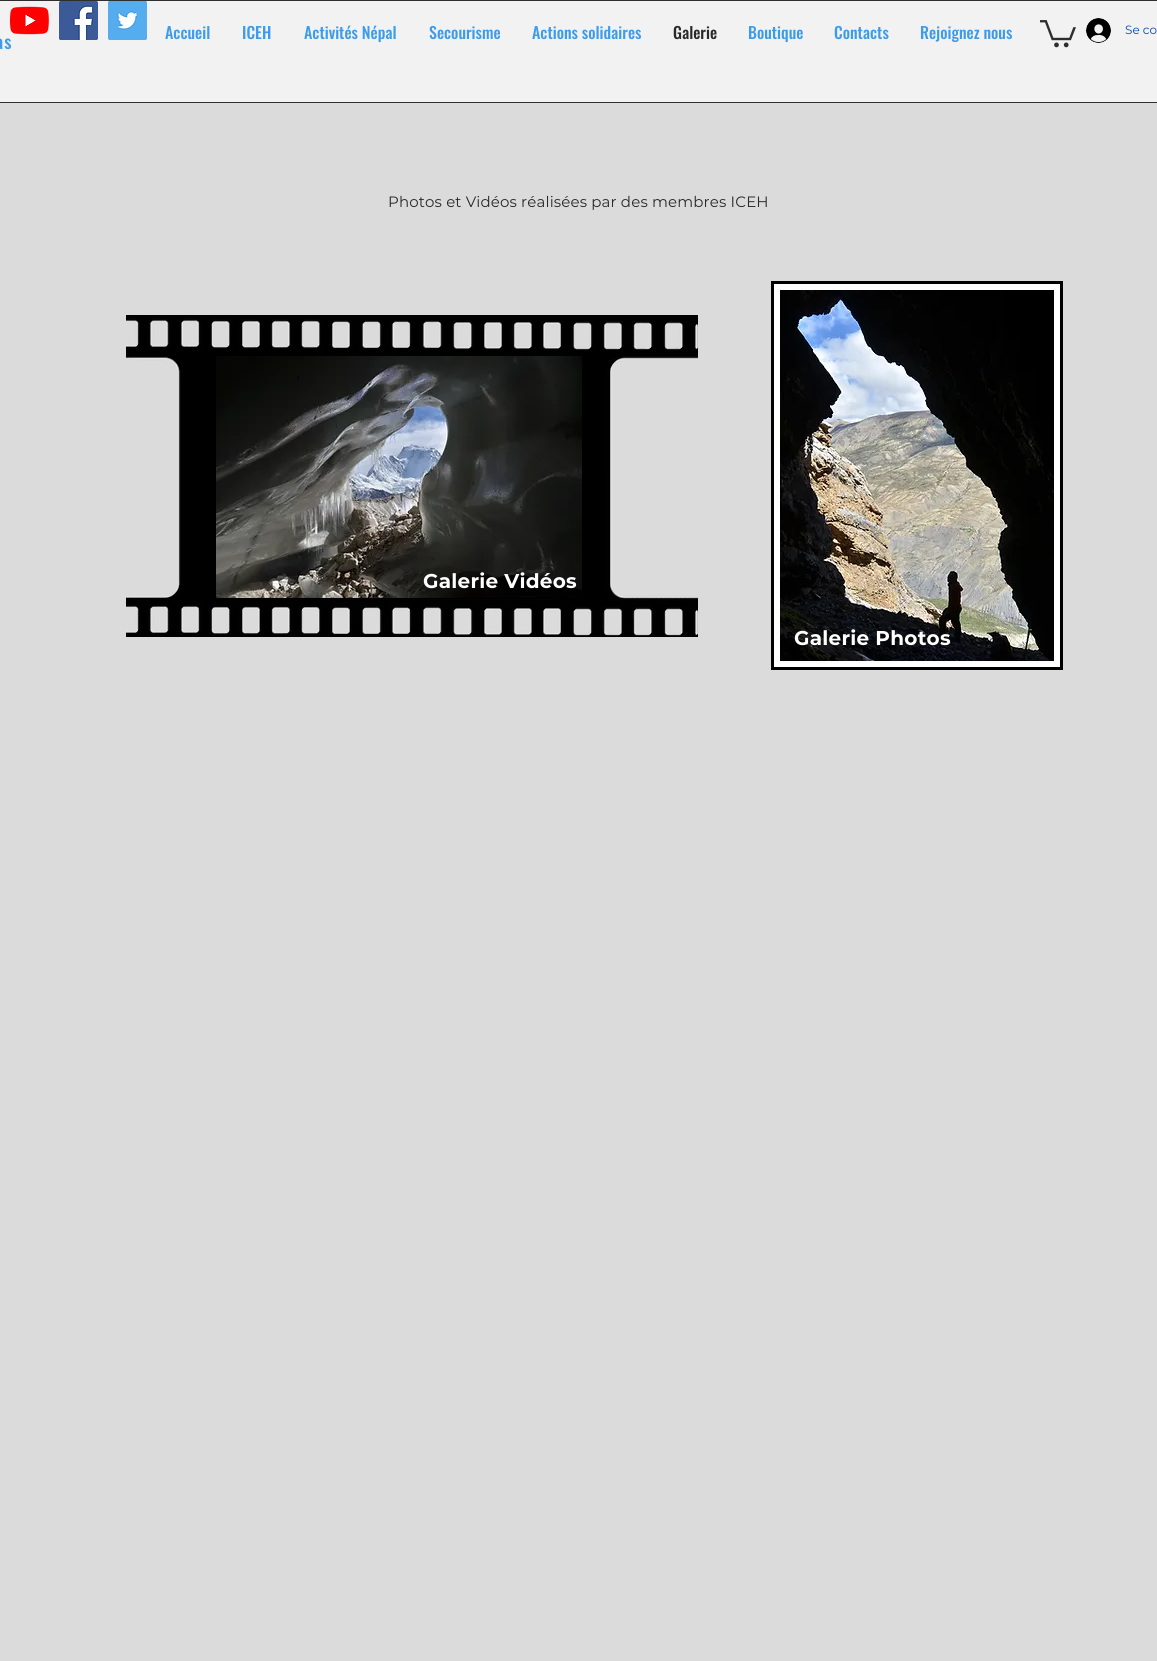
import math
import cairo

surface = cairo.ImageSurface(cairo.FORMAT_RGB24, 1157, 1661)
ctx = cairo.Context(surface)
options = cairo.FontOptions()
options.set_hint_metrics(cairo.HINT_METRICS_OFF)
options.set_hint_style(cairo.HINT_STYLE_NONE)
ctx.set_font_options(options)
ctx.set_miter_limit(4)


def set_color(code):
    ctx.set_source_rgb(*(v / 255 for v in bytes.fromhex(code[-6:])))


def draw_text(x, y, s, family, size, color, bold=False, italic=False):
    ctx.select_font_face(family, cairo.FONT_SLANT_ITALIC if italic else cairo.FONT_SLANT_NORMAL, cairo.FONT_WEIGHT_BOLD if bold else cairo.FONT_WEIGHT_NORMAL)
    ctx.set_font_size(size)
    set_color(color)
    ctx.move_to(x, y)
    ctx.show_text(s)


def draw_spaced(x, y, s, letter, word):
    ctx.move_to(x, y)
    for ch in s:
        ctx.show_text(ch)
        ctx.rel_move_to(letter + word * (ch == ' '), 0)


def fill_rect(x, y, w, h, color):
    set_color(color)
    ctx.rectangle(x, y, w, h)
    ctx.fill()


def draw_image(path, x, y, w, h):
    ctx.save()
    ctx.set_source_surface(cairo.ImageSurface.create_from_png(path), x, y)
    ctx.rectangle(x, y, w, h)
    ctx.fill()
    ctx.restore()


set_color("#dbdbdb")
ctx.paint()
fill_rect(0, 0, 1157, 1, "#2e2e2e")
fill_rect(0, 102, 1157, 1, "#2e2e2e")
fill_rect(0, 1, 1157, 101, "#f2f2f2")
draw_image("assets/img1.png", 10, 6, 39, 29)
draw_image("assets/img2.png", 59, 1, 39, 39)
draw_image("assets/img3.png", 108, 1, 39, 39)
draw_text(165, 39, "Accueil", "Oswald Medium", 16, "#3d9be9")
draw_text(242, 39, "ICEH", "Oswald Medium", 16, "#3d9be9")
draw_text(304, 39, "Activités Népal", "Oswald Medium", 16, "#3d9be9")
draw_text(429, 39, "Secourisme", "Oswald Medium", 16, "#3d9be9")
draw_text(532, 39, "Actions solidaires", "Oswald Medium", 16, "#3d9be9")
draw_text(673, 39, "Galerie", "Oswald Medium", 16, "#292929")
draw_text(748, 39, "Boutique", "Oswald Medium", 16, "#3d9be9")
draw_text(834, 39, "Contacts", "Oswald Medium", 16, "#3d9be9")
draw_text(920, 39, "Rejoignez nous", "Oswald Medium", 16, "#3d9be9")
draw_image("assets/img4.png", 1040, 20, 36, 28)
draw_image("assets/img5.png", 1086, 18, 25, 25)
draw_text(1125, 34, "Se co", "Montserrat", 12, "#044ab3")
ctx.select_font_face("Oswald Medium")
ctx.set_font_size(18)
set_color("#3d9be9")
draw_spaced(-5, 49, "as", 1, 0)
ctx.select_font_face("Montserrat")
ctx.set_font_size(15)
set_color("#292929")
draw_spaced(388, 207, "Photos et Vidéos réalisées par des membres ICEH", 0.15, 0)
draw_image("assets/img6.png", 126, 315, 572, 322)
draw_image("assets/img7.png", 216, 356, 366, 242)
set_color("#ffffff")
ctx.rectangle(772.5, 282.5, 289, 386)
ctx.fill_preserve()
set_color("#000000")
ctx.set_line_width(3)
ctx.stroke()
draw_image("assets/img8.png", 780, 290, 274, 371)
ctx.select_font_face("Montserrat", cairo.FONT_SLANT_NORMAL, cairo.FONT_WEIGHT_BOLD)
ctx.set_font_size(20)
set_color("#ffffff")
draw_spaced(423, 588, "Galerie Vidéos", 0.25, 0)
draw_spaced(794, 645, "Galerie Photos", 0.25, 0)
surface.write_to_png("output.png")
